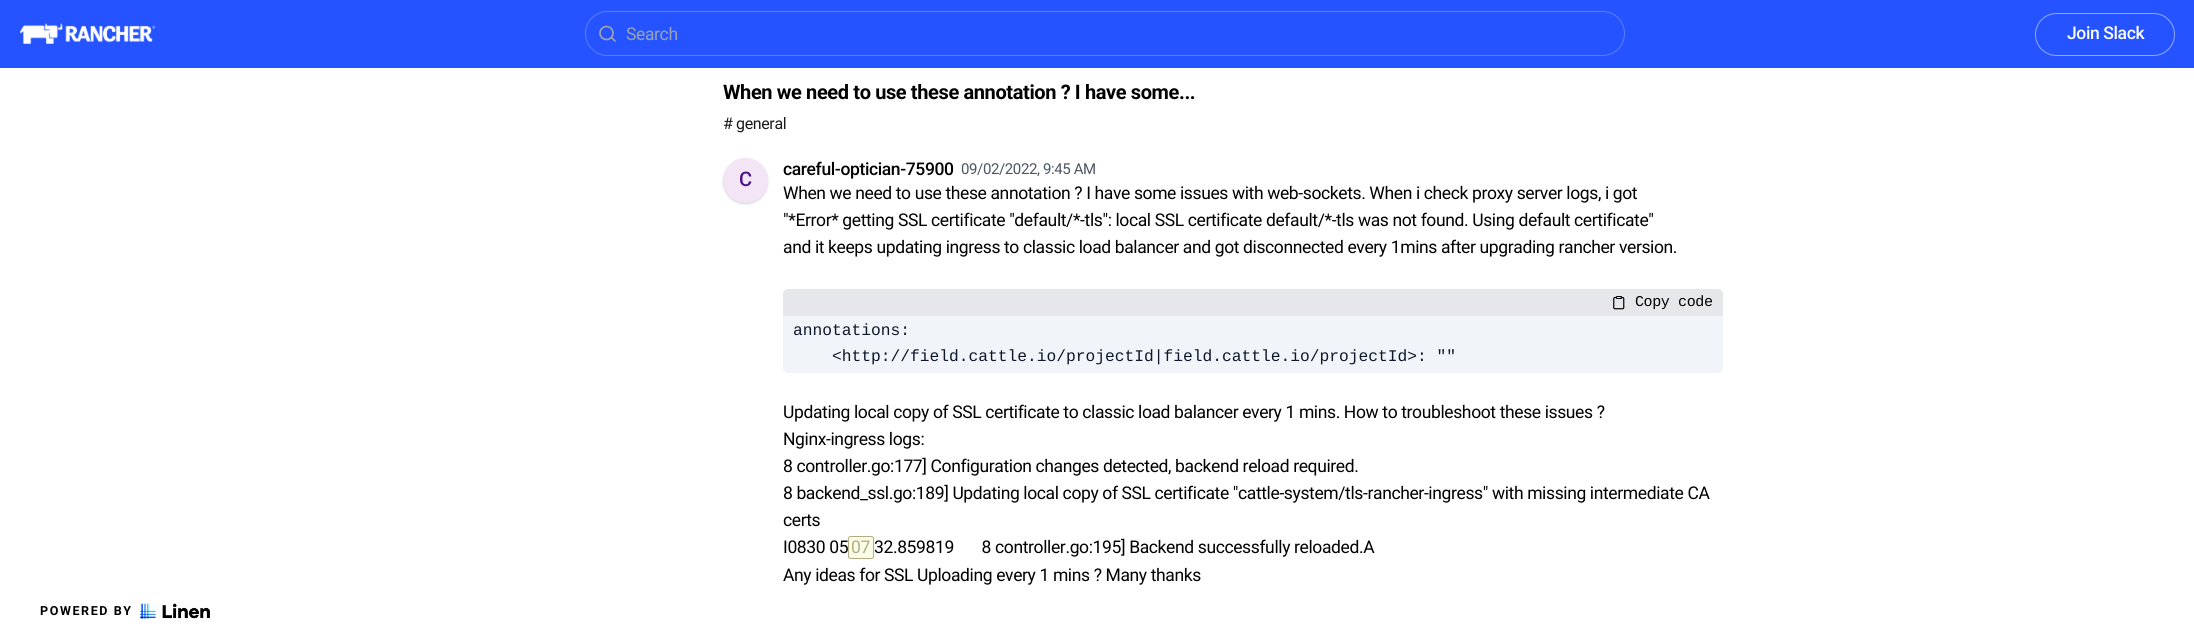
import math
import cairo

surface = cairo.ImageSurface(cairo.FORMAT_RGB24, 2194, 631)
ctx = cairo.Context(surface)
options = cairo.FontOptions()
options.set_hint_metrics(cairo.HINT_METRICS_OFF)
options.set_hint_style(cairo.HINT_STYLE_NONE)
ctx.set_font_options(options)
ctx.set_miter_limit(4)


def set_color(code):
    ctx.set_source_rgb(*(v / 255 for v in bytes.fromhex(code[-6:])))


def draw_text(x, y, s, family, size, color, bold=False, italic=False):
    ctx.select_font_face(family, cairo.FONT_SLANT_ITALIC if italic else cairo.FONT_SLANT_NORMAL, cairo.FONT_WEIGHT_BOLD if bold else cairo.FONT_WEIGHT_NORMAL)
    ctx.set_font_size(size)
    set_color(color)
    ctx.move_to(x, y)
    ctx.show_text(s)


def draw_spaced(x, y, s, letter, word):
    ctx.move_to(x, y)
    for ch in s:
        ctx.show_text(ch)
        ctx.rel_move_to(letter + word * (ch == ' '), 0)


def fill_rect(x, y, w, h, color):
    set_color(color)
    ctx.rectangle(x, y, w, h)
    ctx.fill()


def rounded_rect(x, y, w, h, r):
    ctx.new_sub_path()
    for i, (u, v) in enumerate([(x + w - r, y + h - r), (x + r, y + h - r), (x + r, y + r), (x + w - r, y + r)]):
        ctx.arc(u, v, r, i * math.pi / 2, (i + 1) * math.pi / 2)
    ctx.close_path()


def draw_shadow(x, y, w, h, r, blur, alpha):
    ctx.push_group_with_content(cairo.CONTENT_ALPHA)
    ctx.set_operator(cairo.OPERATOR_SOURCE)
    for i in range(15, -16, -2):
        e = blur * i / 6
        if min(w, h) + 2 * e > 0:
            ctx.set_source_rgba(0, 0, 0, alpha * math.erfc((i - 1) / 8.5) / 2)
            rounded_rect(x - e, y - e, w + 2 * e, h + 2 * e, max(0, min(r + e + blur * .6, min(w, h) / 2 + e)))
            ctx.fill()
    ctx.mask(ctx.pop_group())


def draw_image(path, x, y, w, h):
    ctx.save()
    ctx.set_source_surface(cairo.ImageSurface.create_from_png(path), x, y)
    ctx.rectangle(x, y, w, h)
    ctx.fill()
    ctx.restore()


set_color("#ffffff")
ctx.paint()
fill_rect(0, 0, 2194, 68, "#2453ff")
draw_image("assets/img1.png", 20, 23, 135, 21)
rounded_rect(585.5, 11.5, 1039, 44, 22)
set_color("#5b7eff")
ctx.set_line_width(1)
ctx.stroke()
ctx.arc(606.5, 33, 6.5, 0, 2 * math.pi)
set_color("#9ca3af")
ctx.set_line_width(1.7)
ctx.stroke()
ctx.new_path()
ctx.move_to(615, 41)
ctx.line_to(611.5, 37.5)
ctx.set_line_cap(cairo.LINE_CAP_ROUND)
ctx.set_line_join(cairo.LINE_JOIN_ROUND)
ctx.stroke()
ctx.select_font_face("Roboto")
ctx.set_font_size(17.5)
draw_spaced(626, 40, "Search", -0.38, 0)
rounded_rect(2035.5, 13.5, 139, 42, 21)
set_color("#92a9ff")
ctx.set_line_width(1)
ctx.set_line_cap(cairo.LINE_CAP_BUTT)
ctx.set_line_join(cairo.LINE_JOIN_MITER)
ctx.stroke()
ctx.select_font_face("Roboto Medium")
set_color("#ffffff")
draw_spaced(2067, 39, "Join Slack", -0.38, 0)
ctx.select_font_face("Roboto", cairo.FONT_SLANT_NORMAL, cairo.FONT_WEIGHT_BOLD)
ctx.set_font_size(20)
set_color("#000000")
draw_spaced(723, 99, "When we need to use these annotation ? I have some...", -0.38, 0)
ctx.select_font_face("Roboto")
ctx.set_font_size(16)
set_color("#1a1a1a")
draw_spaced(723, 129, "# general", -0.38, 0)
set_color("#d1d5db")
draw_shadow(723, 159, 45, 45, 22.5, 1, 1)
set_color("#f3e5f5")
ctx.arc(745.5, 180.5, 22.5, 0, 2 * math.pi)
ctx.fill()
ctx.select_font_face("Roboto Medium")
ctx.set_font_size(20)
set_color("#4a148c")
draw_spaced(739, 186, "C", -0.38, 0)
ctx.set_font_size(17.5)
set_color("#000000")
draw_spaced(783, 175, "careful-optician-75900", -0.38, 0)
ctx.select_font_face("Roboto")
ctx.set_font_size(15)
set_color("#4b5563")
draw_spaced(961, 174, "09/02/2022, 9:45 AM", -0.38, 0)
ctx.set_font_size(17.5)
set_color("#000000")
draw_spaced(783, 199, "When we need to use these annotation ? I have some issues with web-sockets. When i check proxy server logs, i got", -0.38, 0)
draw_spaced(783, 226, "\"*Error* getting SSL certificate \"default/*-tls\": local SSL certificate default/*-tls was not found. Using default certificate\"", -0.38, 0)
draw_spaced(783, 253, "and it keeps updating ingress to classic load balancer and got disconnected every 1mins after upgrading rancher version.", -0.38, 0)
set_color("#e5e7eb")
ctx.new_path()
ctx.move_to(788, 289)
ctx.line_to(1718, 289)
ctx.curve_to(1721, 289, 1723, 291, 1723, 294)
ctx.line_to(1723, 316)
ctx.line_to(783, 316)
ctx.line_to(783, 294)
ctx.curve_to(783, 291, 785, 289, 788, 289)
ctx.close_path()
ctx.fill()
draw_image("assets/img2.png", 1613, 296, 12, 14)
ctx.select_font_face("Liberation Mono")
ctx.set_font_size(15)
set_color("#000000")
draw_spaced(1635, 306, "Copy code", -0.38, 0)
set_color("#f1f5f9")
ctx.new_path()
ctx.move_to(783, 316)
ctx.line_to(1723, 316)
ctx.line_to(1723, 368)
ctx.curve_to(1723, 371, 1721, 373, 1718, 373)
ctx.line_to(788, 373)
ctx.curve_to(785, 373, 783, 371, 783, 368)
ctx.close_path()
ctx.fill()
draw_text(793, 335, "annotations:", "Liberation Mono", 16.25, "#0f172a")
draw_text(832, 361, "<http://field.cattle.io/projectId|field.cattle.io/projectId>: \"\"", "Liberation Mono", 16.25, "#0f172a")
ctx.select_font_face("Roboto")
ctx.set_font_size(17.5)
set_color("#000000")
draw_spaced(783, 418, "Updating local copy of SSL certificate to classic load balancer every 1 mins. How to troubleshoot these issues ?", -0.38, 0)
draw_spaced(783, 445, "Nginx-ingress logs:", -0.38, 0)
draw_spaced(783, 472, "8 controller.go:177] Configuration changes detected, backend reload required.", -0.38, 0)
draw_spaced(783, 499, "8 backend_ssl.go:189] Updating local copy of SSL certificate \"cattle-system/tls-rancher-ingress\" with missing intermediate CA", -0.38, 0)
draw_spaced(783, 526, "certs", -0.38, 0)
draw_spaced(783, 553, "I0830 05", -0.38, 0)
set_color("#fafde5")
rounded_rect(848.5, 536.5, 25, 22, 2)
ctx.fill_preserve()
set_color("#b2ad86")
ctx.stroke()
draw_spaced(851, 553, "07", -0.38, 0)
set_color("#000000")
draw_spaced(874, 553, "32.859819       8 controller.go:195] Backend successfully reloaded.A", -0.38, 0)
draw_spaced(783, 581, "Any ideas for SSL Uploading every 1 mins ? Many thanks", -0.38, 0)
ctx.select_font_face("Roboto", cairo.FONT_SLANT_NORMAL, cairo.FONT_WEIGHT_BOLD)
ctx.set_font_size(12.5)
draw_spaced(40, 615, "POWERED BY", 1.6, 0)
draw_image("assets/img3.png", 140, 603, 70, 16)
surface.write_to_png("output.png")
